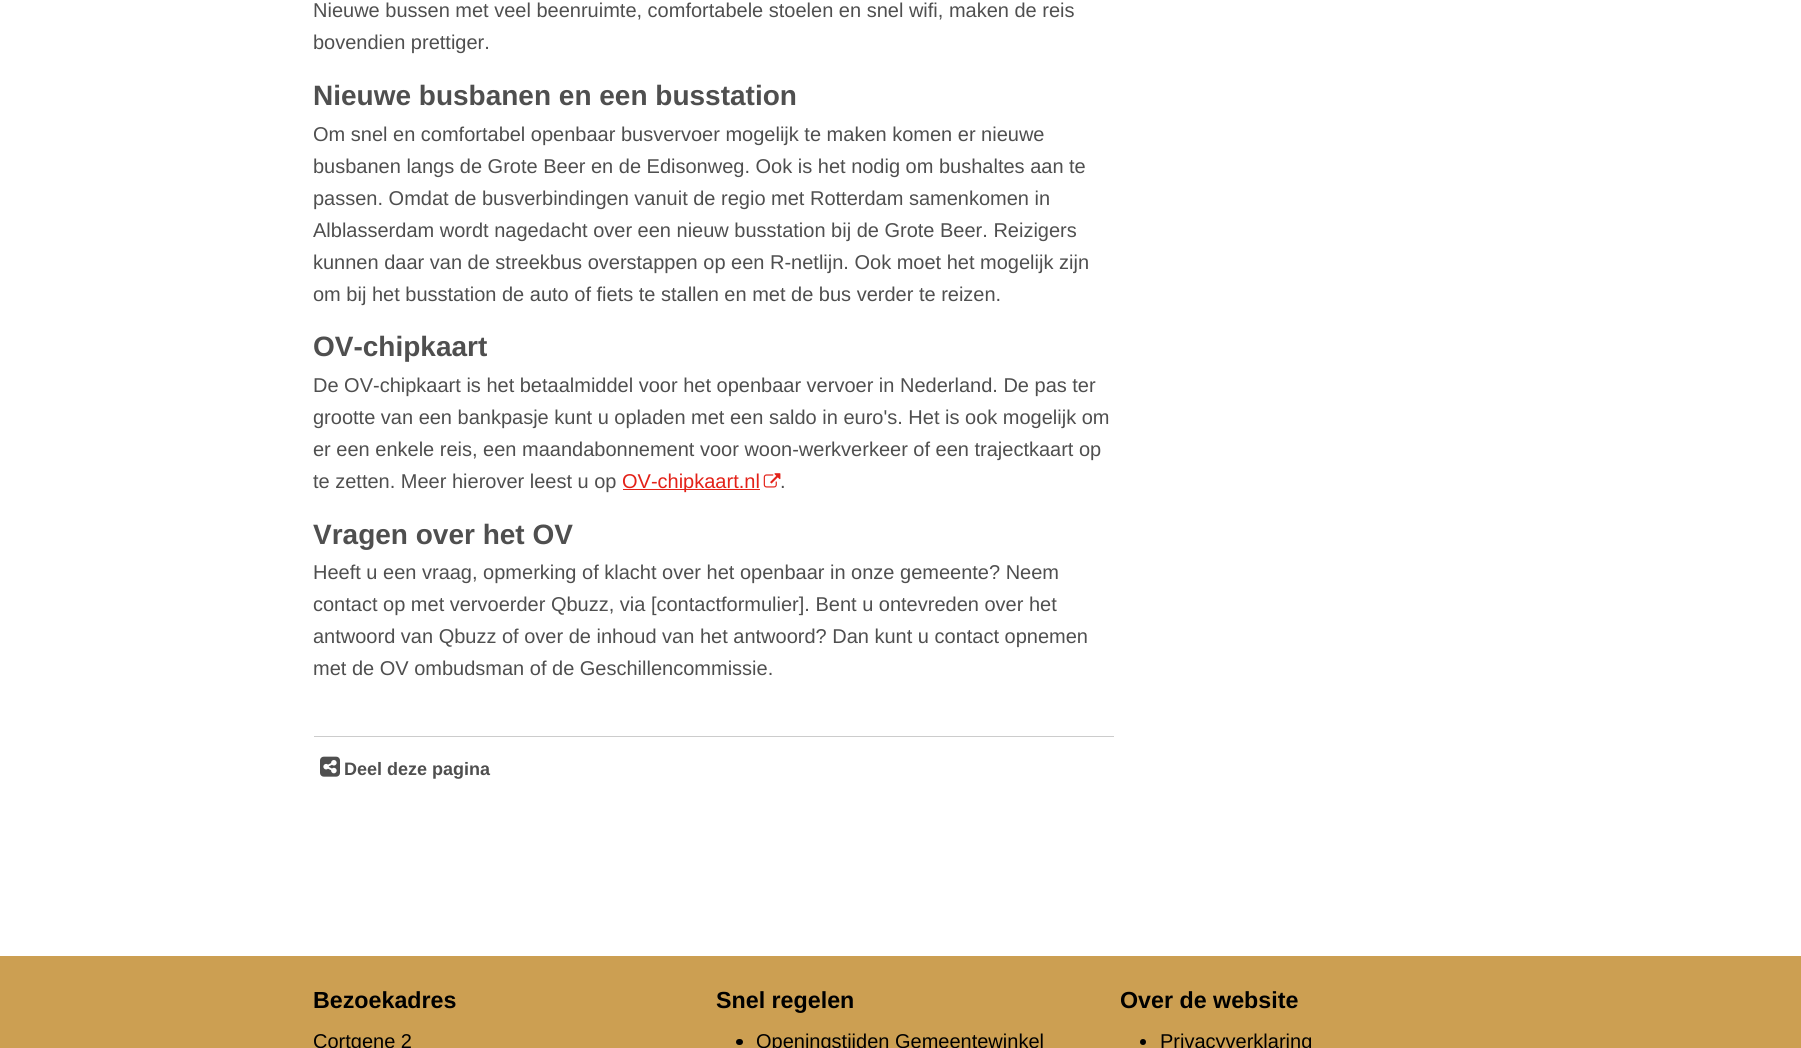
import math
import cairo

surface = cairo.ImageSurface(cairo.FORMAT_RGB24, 1801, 1048)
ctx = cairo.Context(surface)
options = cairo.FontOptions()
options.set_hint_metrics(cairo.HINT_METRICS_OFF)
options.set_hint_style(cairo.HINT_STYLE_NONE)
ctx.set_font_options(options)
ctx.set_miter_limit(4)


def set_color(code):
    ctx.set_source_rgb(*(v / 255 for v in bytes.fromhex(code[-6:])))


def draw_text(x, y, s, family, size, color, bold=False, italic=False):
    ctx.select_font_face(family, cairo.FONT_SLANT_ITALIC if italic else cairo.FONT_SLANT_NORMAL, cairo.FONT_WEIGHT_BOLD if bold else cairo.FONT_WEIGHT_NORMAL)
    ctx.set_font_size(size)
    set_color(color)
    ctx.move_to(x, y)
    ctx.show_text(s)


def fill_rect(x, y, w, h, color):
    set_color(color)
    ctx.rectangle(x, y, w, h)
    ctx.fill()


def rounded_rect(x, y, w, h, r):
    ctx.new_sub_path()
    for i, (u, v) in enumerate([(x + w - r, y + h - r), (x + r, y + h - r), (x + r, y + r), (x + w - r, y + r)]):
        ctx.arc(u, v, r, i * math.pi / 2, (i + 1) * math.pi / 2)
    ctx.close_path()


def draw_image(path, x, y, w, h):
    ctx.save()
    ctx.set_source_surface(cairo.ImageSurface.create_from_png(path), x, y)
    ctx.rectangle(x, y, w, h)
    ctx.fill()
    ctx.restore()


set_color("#ffffff")
ctx.paint()
draw_text(313, 17, "Nieuwe bussen met veel beenruimte, comfortabele stoelen en snel wifi, maken de reis", "Liberation Sans", 20, "#4f4f4f")
draw_text(313, 49, "bovendien prettiger.", "Liberation Sans", 20, "#4f4f4f")
draw_text(313, 105, "Nieuwe busbanen en een busstation", "Liberation Sans", 28, "#4f4f4f", bold=True)
draw_text(313, 141, "Om snel en comfortabel openbaar busvervoer mogelijk te maken komen er nieuwe", "Liberation Sans", 20, "#4f4f4f")
draw_text(313, 173, "busbanen langs de Grote Beer en de Edisonweg. Ook is het nodig om bushaltes aan te", "Liberation Sans", 20, "#4f4f4f")
draw_text(313, 205, "passen. Omdat de busverbindingen vanuit de regio met Rotterdam samenkomen in", "Liberation Sans", 20, "#4f4f4f")
draw_text(313, 237, "Alblasserdam wordt nagedacht over een nieuw busstation bij de Grote Beer. Reizigers", "Liberation Sans", 20, "#4f4f4f")
draw_text(313, 269, "kunnen daar van de streekbus overstappen op een R-netlijn. Ook moet het mogelijk zijn", "Liberation Sans", 20, "#4f4f4f")
draw_text(313, 301, "om bij het busstation de auto of fiets te stallen en met de bus verder te reizen.", "Liberation Sans", 20, "#4f4f4f")
draw_text(313, 356, "OV-chipkaart", "Liberation Sans", 28, "#4f4f4f", bold=True)
draw_text(313, 392, "De OV-chipkaart is het betaalmiddel voor het openbaar vervoer in Nederland. De pas ter", "Liberation Sans", 20, "#4f4f4f")
draw_text(313, 424, "grootte van een bankpasje kunt u opladen met een saldo in euro's. Het is ook mogelijk om", "Liberation Sans", 20, "#4f4f4f")
draw_text(313, 456, "er een enkele reis, een maandabonnement voor woon-werkverkeer of een trajectkaart op", "Liberation Sans", 20, "#4f4f4f")
draw_text(313, 488, "te zetten. Meer hierover leest u op", "Liberation Sans", 20, "#4f4f4f")
fill_rect(623, 489, 137, 1, "#e32118")
draw_text(622, 488, "OV-chipkaart.nl", "Liberation Sans", 20, "#e32118")
draw_image("assets/img1.png", 763, 473, 18, 15)
draw_text(780, 488, ".", "Liberation Sans", 20, "#4f4f4f")
draw_text(313, 544, "Vragen over het OV", "Liberation Sans", 28, "#4f4f4f", bold=True)
draw_text(313, 579, "Heeft u een vraag, opmerking of klacht over het openbaar in onze gemeente? Neem", "Liberation Sans", 20, "#4f4f4f")
draw_text(313, 611, "contact op met vervoerder Qbuzz, via [contactformulier]. Bent u ontevreden over het", "Liberation Sans", 20, "#4f4f4f")
draw_text(313, 643, "antwoord van Qbuzz of over de inhoud van het antwoord? Dan kunt u contact opnemen", "Liberation Sans", 20, "#4f4f4f")
draw_text(313, 675, "met de OV ombudsman of de Geschillencommissie.", "Liberation Sans", 20, "#4f4f4f")
fill_rect(314, 736, 800, 1, "#cccccc")
draw_image("assets/img2.png", 320, 756, 20, 21)
draw_text(344, 775, "Deel deze pagina", "Liberation Sans", 18, "#4f4f4f", bold=True)
fill_rect(0, 956, 1801, 92, "#cc9f52")
draw_text(313, 1008, "Bezoekadres", "Liberation Sans", 23.25, "#000000", bold=True)
draw_text(313, 1048, "Cortgene 2", "Liberation Sans", 20, "#000000")
draw_text(716, 1008, "Snel regelen", "Liberation Sans", 23.25, "#000000", bold=True)
rounded_rect(736, 1039, 7, 6, 3)
ctx.fill()
draw_text(756, 1048, "Openingstijden Gemeentewinkel", "Liberation Sans", 20, "#000000")
draw_text(1120, 1008, "Over de website", "Liberation Sans", 23.25, "#000000", bold=True)
ctx.new_path()
ctx.arc(1143, 1042, 3, 0, 2 * math.pi)
ctx.fill()
draw_text(1160, 1048, "Privacyverklaring", "Liberation Sans", 20, "#000000")
surface.write_to_png("output.png")
